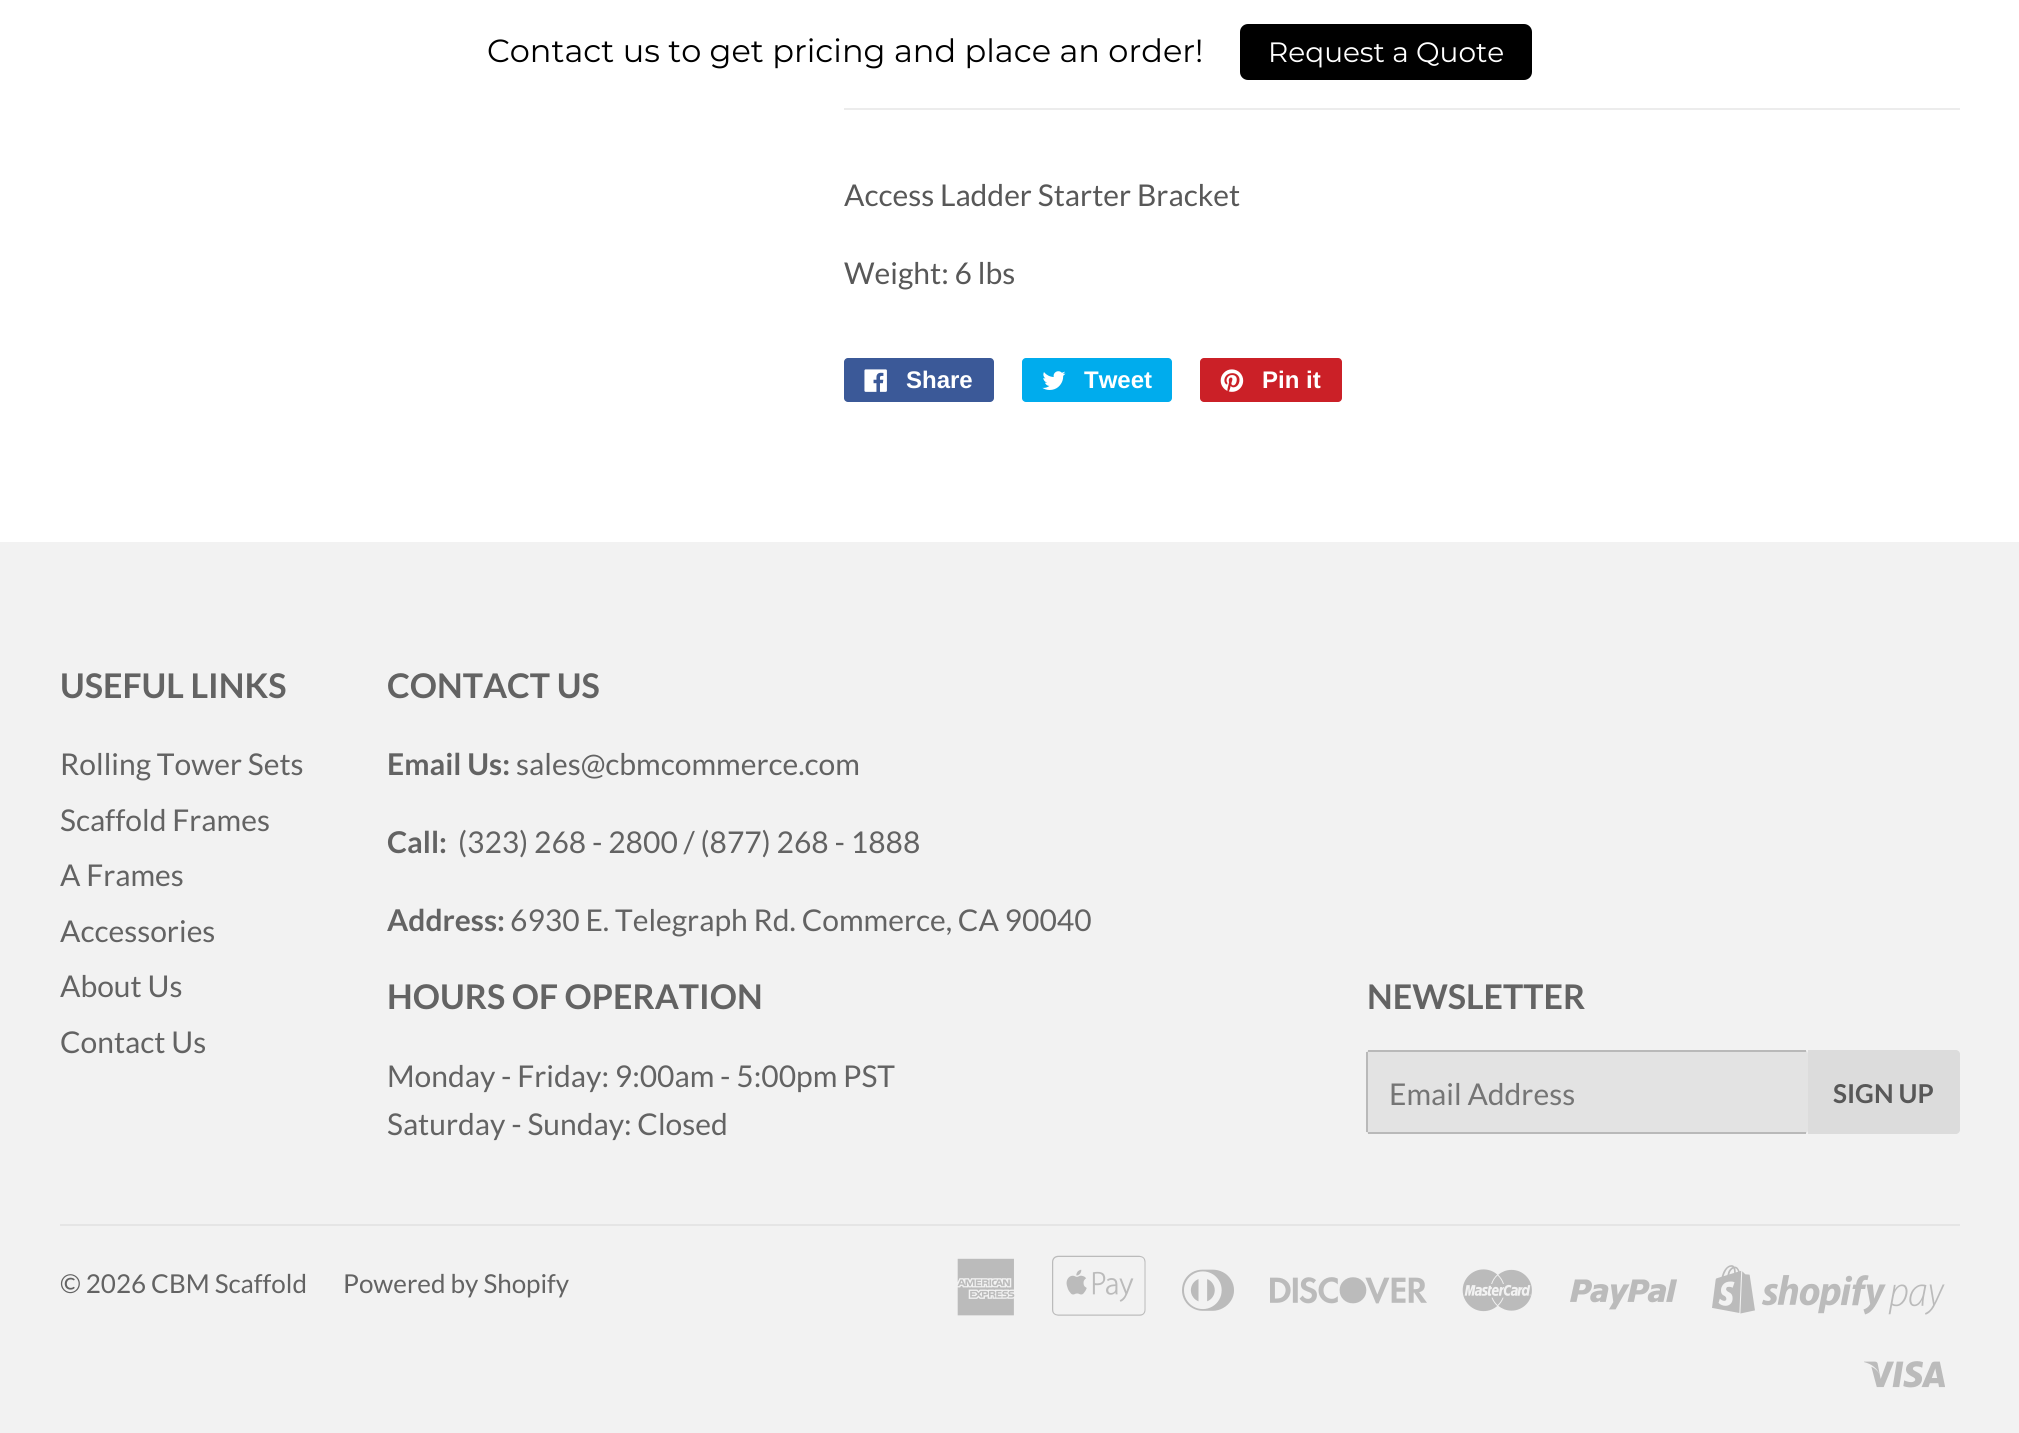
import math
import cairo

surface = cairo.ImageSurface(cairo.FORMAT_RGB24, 2019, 1433)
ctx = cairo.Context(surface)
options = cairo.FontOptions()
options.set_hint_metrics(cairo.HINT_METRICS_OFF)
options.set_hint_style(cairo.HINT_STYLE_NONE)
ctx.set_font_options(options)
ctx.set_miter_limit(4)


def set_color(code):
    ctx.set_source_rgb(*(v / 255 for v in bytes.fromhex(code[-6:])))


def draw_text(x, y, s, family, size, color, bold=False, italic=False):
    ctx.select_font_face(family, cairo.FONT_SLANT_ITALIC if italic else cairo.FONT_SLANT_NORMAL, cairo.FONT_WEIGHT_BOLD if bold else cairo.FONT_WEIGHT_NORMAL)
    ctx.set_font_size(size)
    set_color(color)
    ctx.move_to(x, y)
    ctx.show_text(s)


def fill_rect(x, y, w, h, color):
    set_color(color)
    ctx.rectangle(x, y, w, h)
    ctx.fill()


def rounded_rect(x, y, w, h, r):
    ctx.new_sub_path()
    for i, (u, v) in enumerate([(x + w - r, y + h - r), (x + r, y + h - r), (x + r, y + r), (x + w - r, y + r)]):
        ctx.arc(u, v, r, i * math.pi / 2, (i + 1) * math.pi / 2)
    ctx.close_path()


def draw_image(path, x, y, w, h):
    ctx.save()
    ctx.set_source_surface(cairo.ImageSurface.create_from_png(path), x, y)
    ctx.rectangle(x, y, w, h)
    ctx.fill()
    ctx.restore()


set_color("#ffffff")
ctx.paint()
draw_text(487, 62, "Contact us to get pricing and place an order!", "Montserrat Thin", 32, "#000000")
rounded_rect(1240, 24, 292, 56, 8)
ctx.fill()
draw_text(1268, 62, "Request a Quote", "Montserrat Thin", 28, "#ffffff")
fill_rect(844, 108, 1116, 2, "#ececec")
draw_text(844, 206, "Access Ladder Starter Bracket", "Lato", 30, "#585858")
draw_text(844, 284, "Weight: 6 lbs", "Lato", 30, "#585858")
set_color("#3b5998")
rounded_rect(844, 358, 150, 44, 4)
ctx.fill()
draw_image("assets/img1.png", 864, 369, 23, 23)
draw_text(906, 388, "Share", "Liberation Sans", 24, "#ffffff", bold=True)
set_color("#00aced")
rounded_rect(1022, 358, 150, 44, 4)
ctx.fill()
draw_image("assets/img2.png", 1042, 371, 24, 19)
draw_text(1084, 388, "Tweet", "Liberation Sans", 24, "#ffffff", bold=True)
set_color("#cb2027")
rounded_rect(1200, 358, 142, 44, 4)
ctx.fill()
draw_image("assets/img3.png", 1220, 369, 24, 23)
draw_text(1262, 388, "Pin it", "Liberation Sans", 24, "#ffffff", bold=True)
fill_rect(0, 542, 2019, 891, "#f2f2f2")
draw_text(60, 698, "USEFUL LINKS", "Lato", 34, "#636363", bold=True)
draw_text(60, 775, "Rolling Tower Sets", "Lato", 30, "#636363")
draw_text(60, 831, "Scaffold Frames", "Lato", 30, "#636363")
draw_text(60, 886, "A Frames", "Lato", 30, "#636363")
draw_text(60, 942, "Accessories", "Lato", 30, "#636363")
draw_text(60, 997, "About Us", "Lato", 30, "#636363")
draw_text(60, 1053, "Contact Us", "Lato", 30, "#636363")
draw_text(387, 698, "CONTACT US", "Lato", 34, "#636363", bold=True)
draw_text(387, 775, "Email Us:", "Lato", 30, "#636363", bold=True)
draw_text(516, 775, "sales@cbmcommerce.com", "Lato", 30, "#636363")
draw_text(387, 853, "Call:", "Lato", 30, "#636363", bold=True)
draw_text(458, 853, "(323) 268 - 2800 / (877) 268 - 1888", "Lato", 30, "#636363")
draw_text(387, 931, "Address:", "Lato", 30, "#636363", bold=True)
draw_text(510, 931, "6930 E. Telegraph Rd. Commerce, CA 90040", "Lato", 30, "#636363")
draw_text(387, 1009, "HOURS OF OPERATION", "Lato", 34, "#636363", bold=True)
draw_text(387, 1087, "Monday - Friday: 9:00am - 5:00pm PST", "Lato", 30, "#636363")
draw_text(387, 1135, "Saturday - Sunday: Closed", "Lato", 30, "#636363")
draw_text(1367, 1009, "NEWSLETTER", "Lato", 34, "#636363", bold=True)
set_color("#e3e3e3")
rounded_rect(1366, 1050, 442, 84, 4)
ctx.fill()
fill_rect(1368, 1050, 438, 2, "#b9b9b9")
fill_rect(1368, 1132, 438, 2, "#b9b9b9")
fill_rect(1366, 1052, 2, 80, "#b9b9b9")
draw_text(1389, 1105, "Email Address", "Lato", 30, "#757575")
set_color("#dcdcdc")
ctx.new_path()
ctx.move_to(1808, 1050)
ctx.line_to(1956, 1050)
ctx.curve_to(1958, 1050, 1960, 1052, 1960, 1054)
ctx.line_to(1960, 1130)
ctx.curve_to(1960, 1132, 1958, 1134, 1956, 1134)
ctx.line_to(1808, 1134)
ctx.close_path()
ctx.fill()
draw_text(1833, 1103, "SIGN UP", "Lato", 26, "#585858", bold=True)
fill_rect(60, 1224, 1900, 2, "#e5e5e5")
draw_text(60, 1293, "© 2026 CBM Scaffold", "Lato", 26, "#636363")
draw_text(343, 1293, "Powered by Shopify", "Lato", 26, "#636363")
draw_image("assets/img4.png", 957, 1258, 58, 58)
draw_image("assets/img5.png", 1052, 1255, 94, 61)
draw_image("assets/img6.png", 1182, 1269, 52, 42)
draw_image("assets/img7.png", 1270, 1277, 157, 27)
draw_image("assets/img8.png", 1462, 1269, 70, 43)
draw_image("assets/img9.png", 1570, 1279, 107, 31)
draw_image("assets/img10.png", 1712, 1265, 233, 50)
draw_image("assets/img11.png", 1864, 1361, 81, 27)
surface.write_to_png("output.png")
